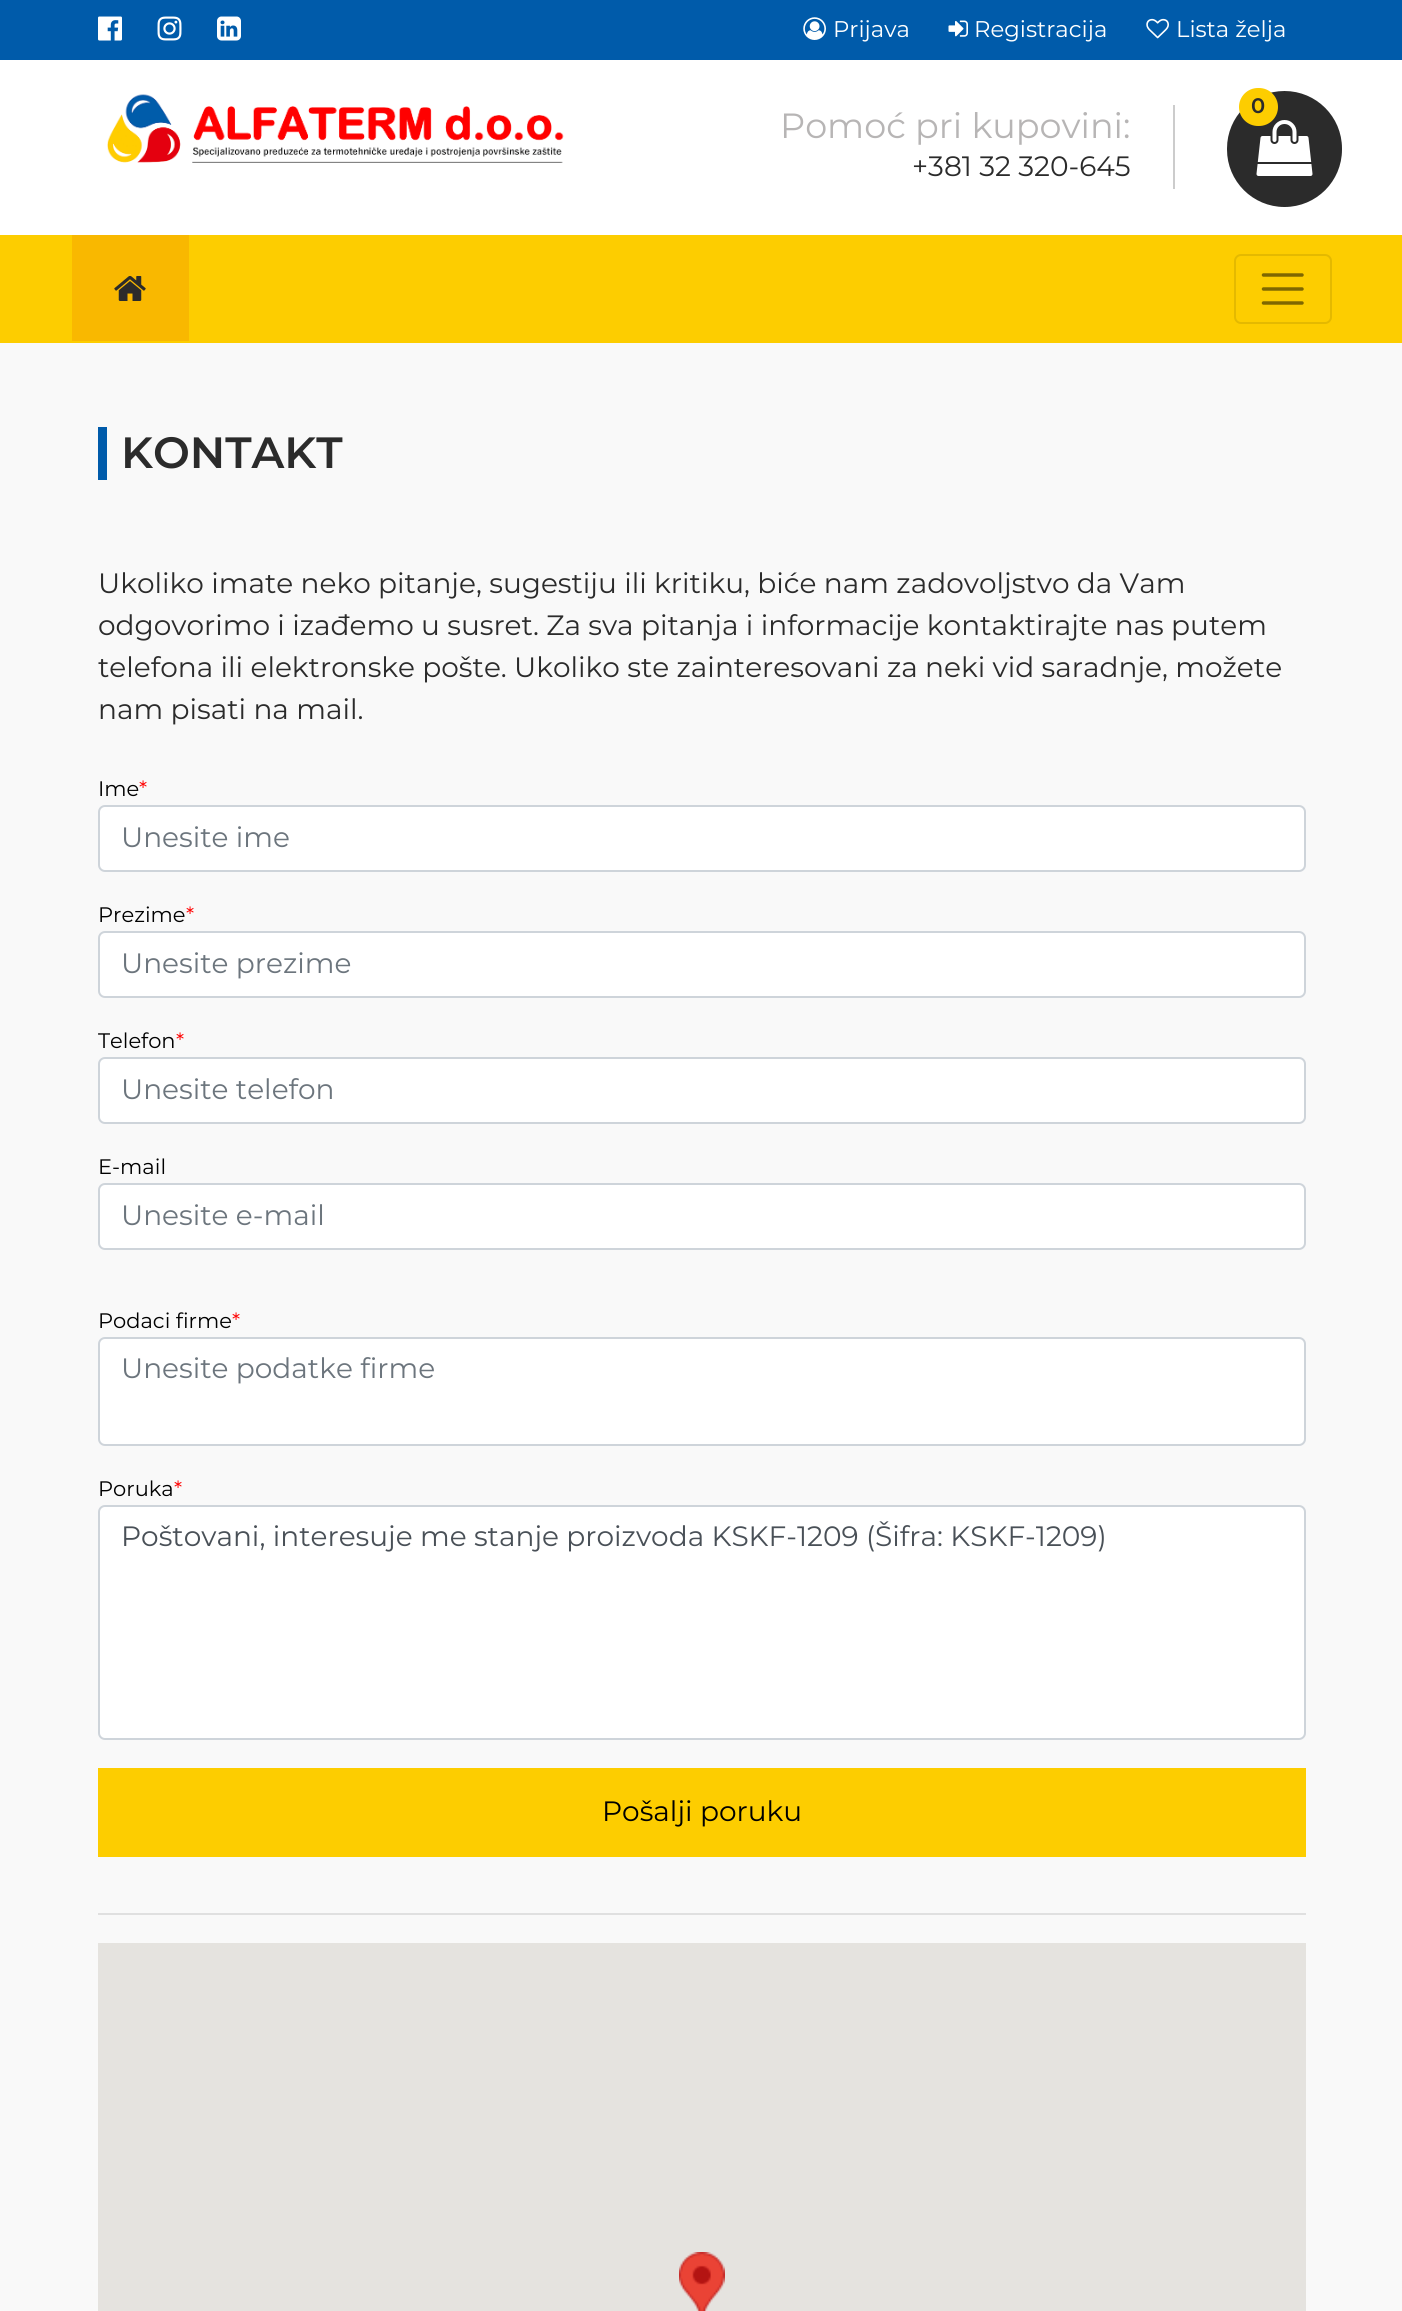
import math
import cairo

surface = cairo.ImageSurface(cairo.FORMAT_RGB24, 1402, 2311)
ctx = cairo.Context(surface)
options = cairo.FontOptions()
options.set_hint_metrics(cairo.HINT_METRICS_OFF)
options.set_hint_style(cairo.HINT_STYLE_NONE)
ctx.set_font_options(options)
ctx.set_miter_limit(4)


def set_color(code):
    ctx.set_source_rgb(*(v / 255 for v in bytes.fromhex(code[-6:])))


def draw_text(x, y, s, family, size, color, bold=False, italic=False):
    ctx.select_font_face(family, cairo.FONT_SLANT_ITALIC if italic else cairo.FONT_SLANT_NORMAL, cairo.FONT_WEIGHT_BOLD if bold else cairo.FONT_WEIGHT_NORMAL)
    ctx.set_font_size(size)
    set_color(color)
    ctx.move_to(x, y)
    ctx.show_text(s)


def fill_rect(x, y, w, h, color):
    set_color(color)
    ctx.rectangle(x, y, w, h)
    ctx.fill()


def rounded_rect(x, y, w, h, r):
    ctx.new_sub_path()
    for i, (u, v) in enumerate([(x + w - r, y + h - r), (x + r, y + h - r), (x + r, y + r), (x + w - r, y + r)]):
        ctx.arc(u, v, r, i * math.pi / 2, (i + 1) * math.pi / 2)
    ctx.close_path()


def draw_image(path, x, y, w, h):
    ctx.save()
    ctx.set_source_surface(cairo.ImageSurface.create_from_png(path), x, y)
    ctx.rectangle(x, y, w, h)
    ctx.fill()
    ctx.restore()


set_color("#ffffff")
ctx.paint()
fill_rect(0, 0, 1402, 60, "#005baa")
draw_image("assets/img1.png", 98, 16, 24, 25)
draw_image("assets/img2.png", 157, 16, 25, 25)
draw_image("assets/img3.png", 217, 16, 24, 25)
draw_image("assets/img4.png", 803, 17, 23, 23)
draw_text(833, 37, "Prijava", "Montserrat", 22.75, "#ffffff")
draw_image("assets/img5.png", 948, 20, 20, 17)
draw_text(974, 37, "Registracija", "Montserrat", 22.75, "#ffffff")
draw_image("assets/img6.png", 1146, 18, 23, 21)
draw_text(1176, 37, "Lista želja", "Montserrat", 22.75, "#ffffff")
draw_image("assets/img7.png", 107, 94, 457, 69)
set_color("#2b2b2b")
rounded_rect(1228, 92, 113, 114, 56.5)
ctx.fill_preserve()
ctx.stroke()
draw_image("assets/img8.png", 1256, 120, 57, 56)
set_color("#fdcd00")
rounded_rect(1239, 88, 39, 38, 19)
ctx.fill()
draw_text(1251, 113, "0", "Montserrat SemiBold", 21, "#2b2b2b")
fill_rect(1173, 105, 2, 84, "#cccccc")
draw_text(780, 138, "Pomoć pri kupovini:", "Montserrat", 35, "#b7b5b5")
draw_text(912, 176, "+381 32 320-645", "Montserrat", 28, "#2b2b2b")
fill_rect(0, 235, 1402, 108, "#fdcd00")
fill_rect(72, 235, 117, 106, "#f9b800")
draw_image("assets/img9.png", 114, 276, 32, 25)
rounded_rect(1235, 255, 96, 68, 6)
set_color("#e4b900")
ctx.stroke()
ctx.new_path()
ctx.move_to(1263.5, 275)
ctx.line_to(1302, 275)
ctx.move_to(1263.5, 289)
ctx.line_to(1302, 289)
ctx.move_to(1263.5, 303)
ctx.line_to(1302, 303)
set_color("#7f6700")
ctx.set_line_width(3.5)
ctx.set_line_cap(cairo.LINE_CAP_ROUND)
ctx.stroke()
fill_rect(0, 343, 1402, 1968, "#f9f9f9")
fill_rect(98, 427, 9, 53, "#005baa")
draw_text(121, 468, "KONTAKT", "Montserrat SemiBold", 43.75, "#2b2b2b")
draw_text(98, 593, "Ukoliko imate neko pitanje, sugestiju ili kritiku, biće nam zadovoljstvo da Vam", "Montserrat", 28, "#2b2b2b")
draw_text(98, 635, "odgovorimo i izađemo u susret. Za sva pitanja i informacije kontaktirajte nas putem", "Montserrat", 28, "#2b2b2b")
draw_text(98, 677, "telefona ili elektronske pošte. Ukoliko ste zainteresovani za neki vid saradnje, možete", "Montserrat", 28, "#2b2b2b")
draw_text(98, 719, "nam pisati na mail.", "Montserrat", 28, "#2b2b2b")
draw_text(98, 796, "Ime", "Montserrat", 21, "#000000")
draw_text(139, 796, "*", "Montserrat", 21, "#ff0000")
set_color("#ffffff")
rounded_rect(99, 806, 1206, 65, 6)
ctx.fill_preserve()
set_color("#ced4da")
ctx.set_line_width(2)
ctx.set_line_cap(cairo.LINE_CAP_BUTT)
ctx.stroke()
draw_text(121, 847, "Unesite ime", "Montserrat", 28, "#6c757d")
draw_text(98, 922, "Prezime", "Montserrat", 21, "#000000")
draw_text(186, 922, "*", "Montserrat", 21, "#ff0000")
set_color("#ffffff")
rounded_rect(99, 932, 1206, 65, 6)
ctx.fill_preserve()
set_color("#ced4da")
ctx.stroke()
draw_text(121, 973, "Unesite prezime", "Montserrat", 28, "#6c757d")
draw_text(98, 1048, "Telefon", "Montserrat", 21, "#000000")
draw_text(176, 1048, "*", "Montserrat", 21, "#ff0000")
set_color("#ffffff")
rounded_rect(99, 1058, 1206, 65, 6)
ctx.fill_preserve()
set_color("#ced4da")
ctx.stroke()
draw_text(121, 1099, "Unesite telefon", "Montserrat", 28, "#6c757d")
draw_text(98, 1174, "E-mail", "Montserrat", 21, "#000000")
set_color("#ffffff")
rounded_rect(99, 1184, 1206, 65, 6)
ctx.fill_preserve()
set_color("#ced4da")
ctx.stroke()
draw_text(121, 1225, "Unesite e-mail", "Montserrat", 28, "#6c757d")
draw_text(98, 1328, "Podaci firme", "Montserrat", 21, "#000000")
draw_text(232, 1328, "*", "Montserrat", 21, "#ff0000")
set_color("#ffffff")
rounded_rect(99, 1338, 1206, 107, 6)
ctx.fill_preserve()
set_color("#ced4da")
ctx.stroke()
draw_text(121, 1378, "Unesite podatke firme", "Montserrat", 28, "#6c757d")
draw_text(98, 1496, "Poruka", "Montserrat", 21, "#000000")
draw_text(174, 1496, "*", "Montserrat", 21, "#ff0000")
set_color("#ffffff")
rounded_rect(99, 1506, 1206, 233, 6)
ctx.fill_preserve()
set_color("#ced4da")
ctx.stroke()
draw_text(121, 1546, "Poštovani, interesuje me stanje proizvoda KSKF-1209 (Šifra: KSKF-1209)", "Montserrat", 28, "#495057")
fill_rect(98, 1768, 1208, 89, "#fdcd00")
draw_text(602, 1821, "Pošalji poruku", "Montserrat", 28, "#000000")
fill_rect(98, 1913, 1208, 2, "#e0e0e0")
fill_rect(98, 1943, 1208, 368, "#e5e3df")
draw_image("assets/img10.png", 679, 2252, 46, 59)
surface.write_to_png("output.png")
